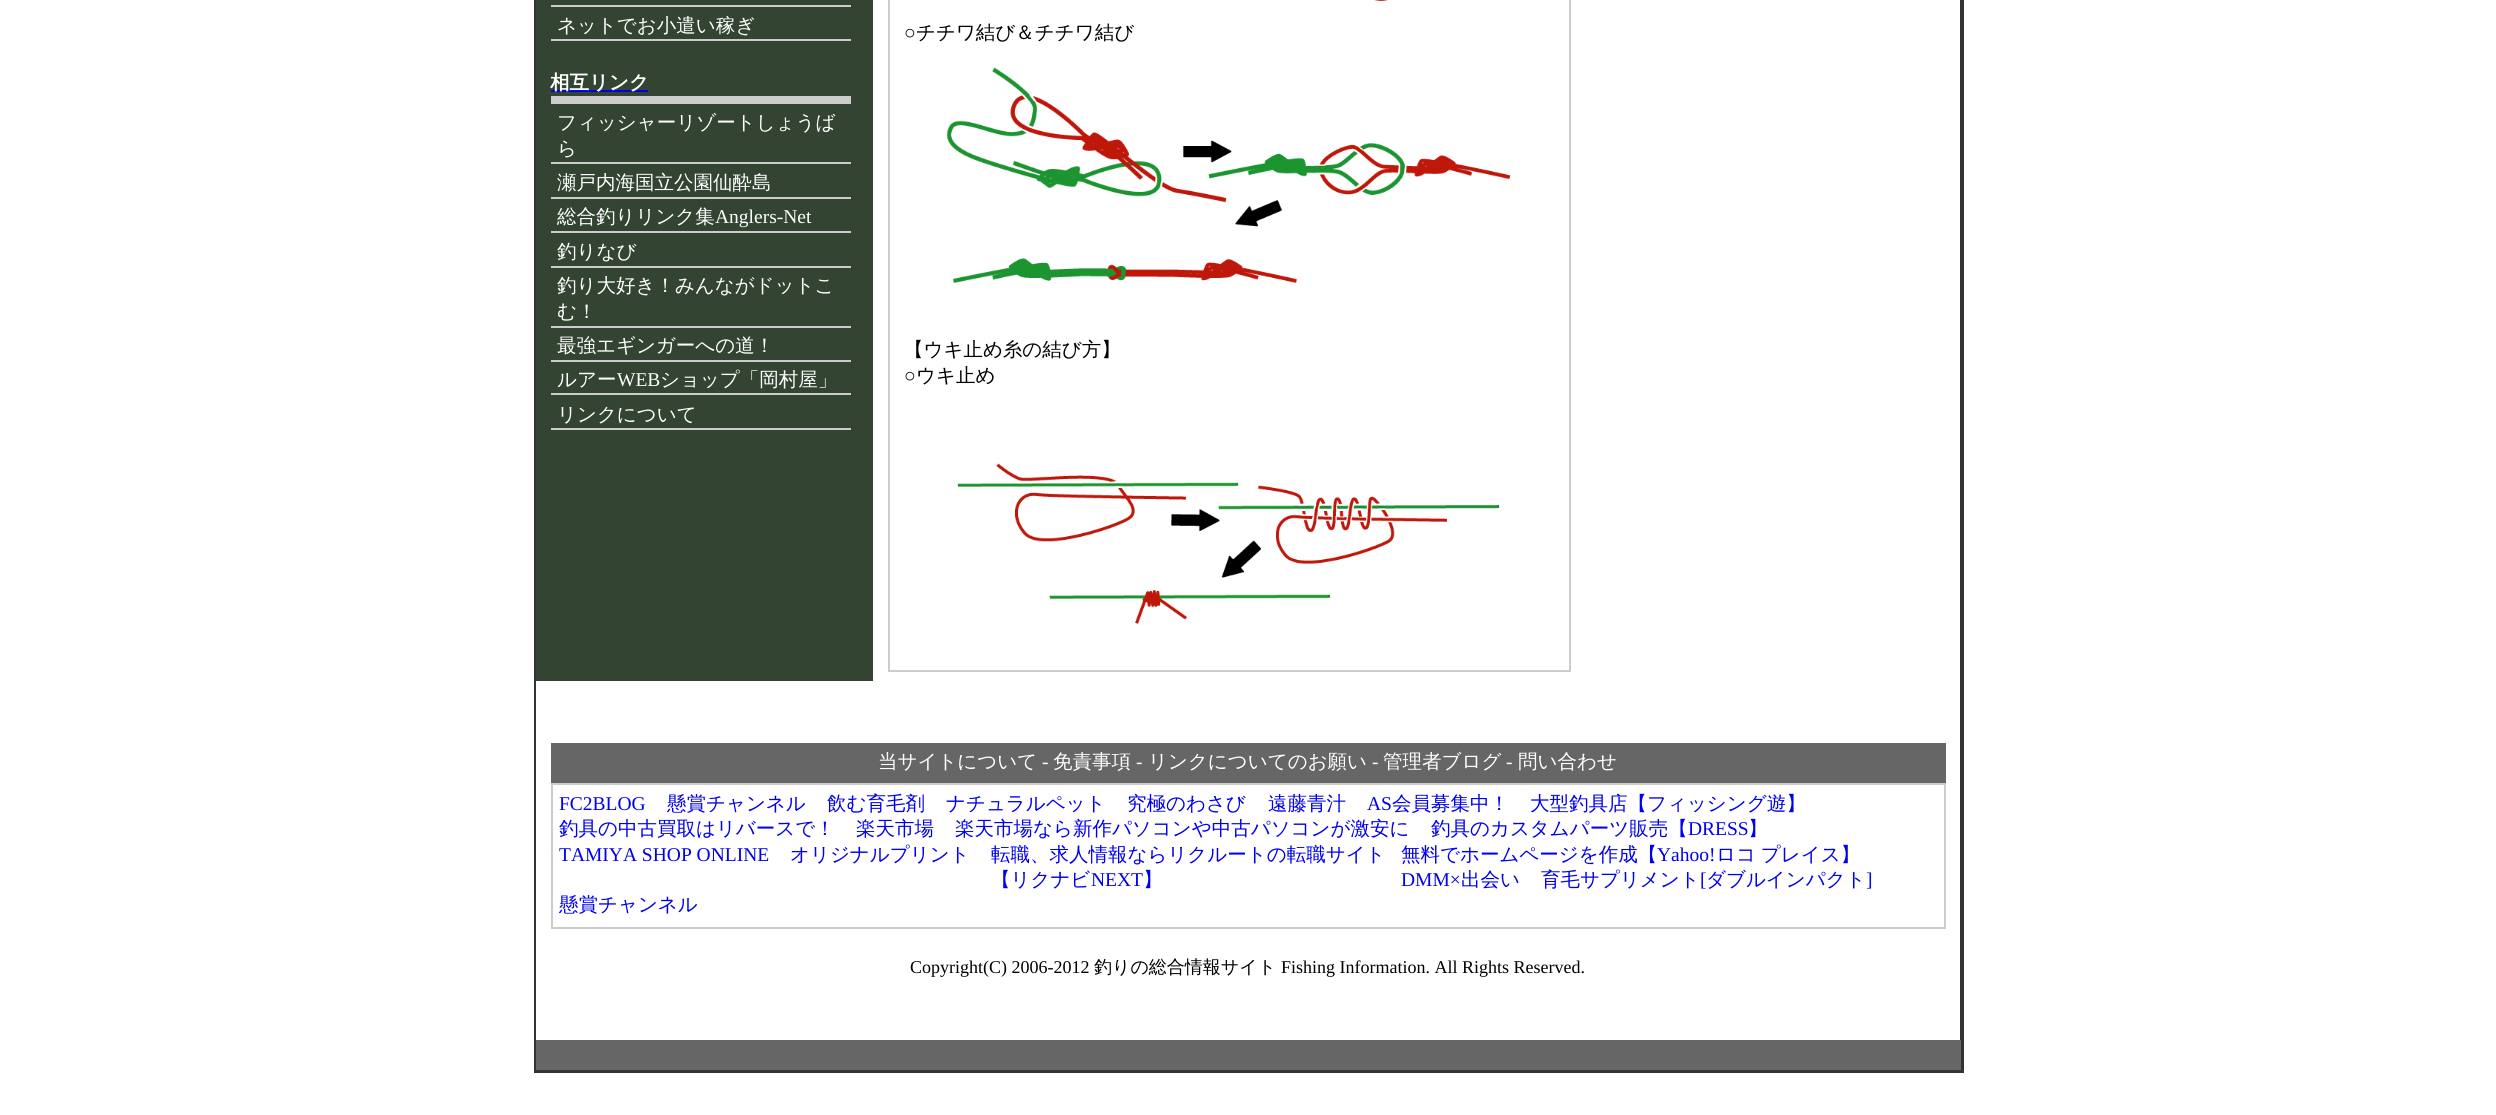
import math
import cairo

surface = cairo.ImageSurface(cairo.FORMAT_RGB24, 2496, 1115)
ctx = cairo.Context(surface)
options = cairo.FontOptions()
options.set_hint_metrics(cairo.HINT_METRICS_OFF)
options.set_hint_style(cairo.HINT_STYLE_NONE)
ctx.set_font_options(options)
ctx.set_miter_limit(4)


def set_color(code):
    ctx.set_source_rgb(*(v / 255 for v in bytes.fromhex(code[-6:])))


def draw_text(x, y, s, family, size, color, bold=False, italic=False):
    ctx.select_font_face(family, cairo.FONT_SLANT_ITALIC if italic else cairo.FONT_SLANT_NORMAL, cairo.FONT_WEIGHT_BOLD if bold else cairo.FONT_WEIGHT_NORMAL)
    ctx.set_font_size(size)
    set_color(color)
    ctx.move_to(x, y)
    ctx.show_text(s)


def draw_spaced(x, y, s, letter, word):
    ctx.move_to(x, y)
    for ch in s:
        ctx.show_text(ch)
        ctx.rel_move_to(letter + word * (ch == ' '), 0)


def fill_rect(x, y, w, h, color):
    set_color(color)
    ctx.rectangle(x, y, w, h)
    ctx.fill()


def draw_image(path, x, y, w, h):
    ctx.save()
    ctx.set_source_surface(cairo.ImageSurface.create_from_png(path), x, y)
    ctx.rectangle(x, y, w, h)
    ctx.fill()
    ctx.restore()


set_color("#ffffff")
ctx.paint()
set_color("#333333")
ctx.new_path()
ctx.move_to(1964, -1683)
ctx.line_to(1964, 1072)
ctx.line_to(1960, 1070)
ctx.line_to(1960, -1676)
ctx.close_path()
ctx.fill()
fill_rect(534, 1070, 1430, 3, "#333333")
ctx.new_path()
ctx.move_to(534, 1072)
ctx.line_to(534, -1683)
ctx.line_to(536, -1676)
ctx.line_to(536, 1070)
ctx.close_path()
ctx.fill()
fill_rect(536, 0, 337, 681, "#334433")
fill_rect(551, 5, 300, 2, "#cccccc")
fill_rect(551, 39, 300, 2, "#cccccc")
draw_text(557, 32, "ネットでお小遣い稼ぎ", "WenQuanYi Zen Hei Medium", 19.5, "#ffffff")
fill_rect(551, 96, 300, 8, "#cccccc")
fill_rect(551, 90, 97, 2, "#0000ee")
draw_text(550, 89, "相互リンク", "WenQuanYi Zen Hei", 19.5, "#ffffff", bold=True)
fill_rect(551, 162, 300, 2, "#cccccc")
draw_text(557, 129, "フィッシャーリゾートしょうば", "WenQuanYi Zen Hei Medium", 19.5, "#ffffff")
draw_text(557, 155, "ら", "WenQuanYi Zen Hei Medium", 19.5, "#ffffff")
fill_rect(551, 197, 300, 2, "#cccccc")
draw_text(557, 189, "瀬戸内海国立公園仙酔島", "WenQuanYi Zen Hei Medium", 19.5, "#ffffff")
fill_rect(551, 231, 300, 2, "#cccccc")
draw_text(557, 223, "総合釣りリンク集", "WenQuanYi Zen Hei Medium", 19.5, "#ffffff")
draw_text(715, 223, "Anglers-Net", "Liberation Serif", 19.5, "#ffffff")
fill_rect(551, 266, 300, 2, "#cccccc")
draw_text(557, 258, "釣りなび", "WenQuanYi Zen Hei Medium", 19.5, "#ffffff")
fill_rect(551, 326, 300, 2, "#cccccc")
draw_text(557, 292, "釣り大好き！みんながドットこ", "WenQuanYi Zen Hei Medium", 19.5, "#ffffff")
draw_text(557, 318, "む！", "WenQuanYi Zen Hei Medium", 19.5, "#ffffff")
fill_rect(551, 360, 300, 2, "#cccccc")
draw_text(557, 352, "最強エギンガーへの道！", "WenQuanYi Zen Hei Medium", 19.5, "#ffffff")
fill_rect(551, 393, 300, 2, "#cccccc")
draw_text(557, 386, "ルアー", "WenQuanYi Zen Hei Medium", 19.5, "#ffffff")
draw_text(617, 386, "WEB", "Liberation Serif", 19.5, "#ffffff")
draw_text(660, 386, "ショップ「岡村屋」", "WenQuanYi Zen Hei Medium", 19.5, "#ffffff")
fill_rect(551, 428, 300, 2, "#cccccc")
draw_text(557, 421, "リンクについて", "WenQuanYi Zen Hei Medium", 19.5, "#ffffff")
ctx.rectangle(889, -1, 681, 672)
set_color("#cccccc")
ctx.stroke()
draw_image("assets/img1.png", 1374, 0, 14, 1)
draw_text(904, 39, "○", "Liberation Serif", 19.5, "#000000")
draw_text(916, 39, "チチワ結び＆チチワ結び", "WenQuanYi Zen Hei Medium", 19.5, "#000000")
draw_image("assets/img2.png", 946, 67, 565, 216)
draw_text(904, 356, "【ウキ止め糸の結び方】", "WenQuanYi Zen Hei Medium", 19.5, "#000000")
draw_text(904, 382, "○", "Liberation Serif", 19.5, "#000000")
draw_text(916, 382, "ウキ止め", "WenQuanYi Zen Hei Medium", 19.5, "#000000")
draw_image("assets/img3.png", 957, 463, 543, 161)
fill_rect(536, 1040, 1425, 30, "#666666")
fill_rect(551, 743, 1395, 40, "#666666")
draw_text(878, 768, "当サイトについて", "WenQuanYi Zen Hei Medium", 19.5, "#ffffff")
draw_text(1042, 768, "-", "Liberation Serif", 19.5, "#ffffff")
draw_text(1053, 768, "免責事項", "WenQuanYi Zen Hei Medium", 19.5, "#ffffff")
draw_text(1136, 768, "-", "Liberation Serif", 19.5, "#ffffff")
draw_text(1148, 768, "リンクについてのお願い", "WenQuanYi Zen Hei Medium", 19.5, "#ffffff")
draw_text(1372, 768, "-", "Liberation Serif", 19.5, "#ffffff")
draw_text(1383, 768, "管理者ブログ", "WenQuanYi Zen Hei Medium", 19.5, "#ffffff")
draw_text(1506, 768, "-", "Liberation Serif", 19.5, "#ffffff")
draw_text(1518, 768, "問い合わせ", "WenQuanYi Zen Hei Medium", 19.5, "#ffffff")
ctx.rectangle(552, 784, 1393, 144)
set_color("#cccccc")
ctx.stroke()
draw_text(559, 810, "FC2BLOG", "Liberation Serif", 19.5, "#0000ee")
draw_text(667, 810, "懸賞チャンネル", "WenQuanYi Zen Hei Medium", 19.5, "#0000ee")
draw_text(827, 810, "飲む育毛剤", "WenQuanYi Zen Hei Medium", 19.5, "#0000ee")
draw_text(946, 810, "ナチュラルペット", "WenQuanYi Zen Hei Medium", 19.5, "#0000ee")
draw_text(1127, 810, "究極のわさび", "WenQuanYi Zen Hei Medium", 19.5, "#0000ee")
draw_text(1268, 810, "遠藤青汁", "WenQuanYi Zen Hei Medium", 19.5, "#0000ee")
draw_text(1367, 810, "AS", "Liberation Serif", 19.5, "#0000ee")
draw_text(1392, 810, "会員募集中！", "WenQuanYi Zen Hei Medium", 19.5, "#0000ee")
draw_text(1530, 810, "大型釣具店【フィッシング遊】", "WenQuanYi Zen Hei Medium", 19.5, "#0000ee")
draw_text(559, 835, "釣具の中古買取はリバースで！", "WenQuanYi Zen Hei Medium", 19.5, "#0000ee")
draw_text(856, 835, "楽天市場", "WenQuanYi Zen Hei Medium", 19.5, "#0000ee")
draw_text(955, 835, "楽天市場なら新作パソコンや中古パソコンが激安に", "WenQuanYi Zen Hei Medium", 19.5, "#0000ee")
draw_text(1431, 835, "釣具のカスタムパーツ販売【", "WenQuanYi Zen Hei Medium", 19.5, "#0000ee")
draw_text(1688, 835, "DRESS", "Liberation Serif", 19.5, "#0000ee")
draw_text(1748, 835, "】", "WenQuanYi Zen Hei Medium", 19.5, "#0000ee")
draw_text(559, 861, "TAMIYA SHOP ONLINE", "Liberation Serif", 19.5, "#0000ee")
draw_text(790, 861, "オリジナルプリント", "WenQuanYi Zen Hei Medium", 19.5, "#0000ee")
draw_text(991, 861, "転職、求人情報ならリクルートの転職サイト", "WenQuanYi Zen Hei Medium", 19.5, "#0000ee")
draw_text(991, 886, "【リクナビ", "WenQuanYi Zen Hei Medium", 19.5, "#0000ee")
draw_text(1091, 886, "NEXT", "Liberation Serif", 19.5, "#0000ee")
draw_text(1143, 886, "】", "WenQuanYi Zen Hei Medium", 19.5, "#0000ee")
draw_text(1401, 861, "無料でホームページを作成【", "WenQuanYi Zen Hei Medium", 19.5, "#0000ee")
draw_text(1657, 861, "Yahoo!", "Liberation Serif", 19.5, "#0000ee")
ctx.select_font_face("WenQuanYi Zen Hei Medium")
draw_spaced(1716, 861, "ロコ プレイス】", 0, -1)
draw_text(1401, 886, "DMM×", "Liberation Serif", 19.5, "#0000ee")
draw_text(1461, 886, "出会い", "WenQuanYi Zen Hei Medium", 19.5, "#0000ee")
draw_text(1541, 886, "育毛サプリメント", "WenQuanYi Zen Hei Medium", 19.5, "#0000ee")
draw_text(1700, 886, "[", "Liberation Serif", 19.5, "#0000ee")
draw_text(1706, 886, "ダブルインパクト", "WenQuanYi Zen Hei Medium", 19.5, "#0000ee")
draw_text(1866, 886, "]", "Liberation Serif", 19.5, "#0000ee")
draw_text(559, 911, "懸賞チャンネル", "WenQuanYi Zen Hei Medium", 19.5, "#0000ee")
draw_text(910, 973, "Copyright(C) 2006-2012", "Liberation Serif", 18, "#000000")
draw_text(1094, 973, "釣りの総合情報サイト", "WenQuanYi Zen Hei Medium", 18, "#000000")
draw_text(1281, 973, "Fishing Information. All Rights Reserved.", "Liberation Serif", 18, "#000000")
surface.write_to_png("output.png")
